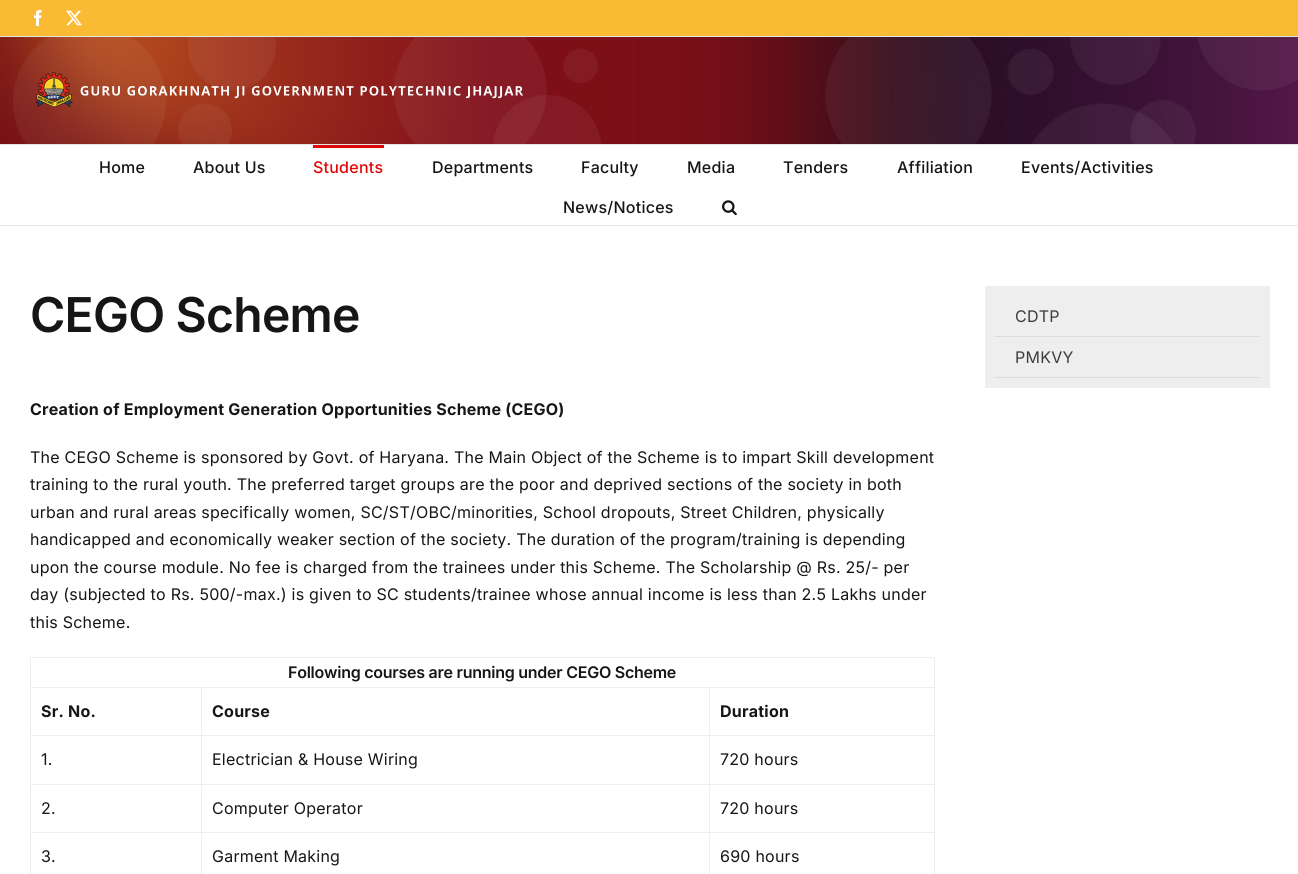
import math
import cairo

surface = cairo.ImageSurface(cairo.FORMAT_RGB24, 1298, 874)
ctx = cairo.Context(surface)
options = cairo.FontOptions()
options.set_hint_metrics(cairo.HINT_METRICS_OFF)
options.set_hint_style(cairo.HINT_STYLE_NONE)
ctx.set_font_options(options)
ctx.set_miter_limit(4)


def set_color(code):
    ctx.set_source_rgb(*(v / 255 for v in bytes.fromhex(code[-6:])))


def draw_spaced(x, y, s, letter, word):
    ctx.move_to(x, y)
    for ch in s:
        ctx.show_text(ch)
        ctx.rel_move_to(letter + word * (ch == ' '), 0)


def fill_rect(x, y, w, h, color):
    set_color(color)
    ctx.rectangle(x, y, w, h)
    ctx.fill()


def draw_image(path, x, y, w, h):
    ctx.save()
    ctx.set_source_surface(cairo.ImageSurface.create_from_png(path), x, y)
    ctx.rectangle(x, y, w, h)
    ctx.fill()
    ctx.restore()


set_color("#ffffff")
ctx.paint()
fill_rect(0, 0, 1298, 36, "#f9ba34")
fill_rect(0, 36, 1298, 1, "#e5e5e5")
draw_image("assets/img1.png", 34, 10, 8, 16)
draw_image("assets/img2.png", 66, 10, 16, 16)
draw_image("assets/img3.png", 0, 37, 1298, 107)
fill_rect(0, 144, 1298, 1, "#e5e5e5")
draw_image("assets/img4.png", 35, 72, 488, 36)
fill_rect(0, 225, 1298, 1, "#e5e5e5")
ctx.select_font_face("Inter Medium")
ctx.set_font_size(16)
set_color("#141617")
draw_spaced(99, 173, "Home", 0.24, 0)
draw_spaced(193, 173, "About Us", 0.24, 0)
fill_rect(313, 145, 71, 3, "#e10707")
draw_spaced(313, 173, "Students", 0.24, 0)
set_color("#141617")
draw_spaced(432, 173, "Departments", 0.24, 0)
draw_spaced(581, 173, "Faculty", 0.24, 0)
draw_spaced(687, 173, "Media", 0.24, 0)
draw_spaced(783, 173, "Tenders", 0.24, 0)
draw_spaced(897, 173, "Affiliation", 0.24, 0)
draw_spaced(1021, 173, "Events/Activities", 0.24, 0)
draw_spaced(563, 213, "News/Notices", 0.24, 0)
draw_image("assets/img5.png", 722, 200, 15, 16)
ctx.select_font_face("Inter SemiBold")
ctx.set_font_size(48)
draw_spaced(30, 332, "CEGO Scheme", -0.75, 0)
ctx.select_font_face("Inter", cairo.FONT_SLANT_NORMAL, cairo.FONT_WEIGHT_BOLD)
ctx.set_font_size(16)
draw_spaced(30, 415, "Creation of Employment Generation Opportunities Scheme (CEGO)", 0.24, 0)
ctx.select_font_face("Inter")
draw_spaced(30, 463, "The CEGO Scheme is sponsored by Govt. of Haryana. The Main Object of the Scheme is to impart Skill development", 0.24, 0)
draw_spaced(30, 490, "training to the rural youth. The preferred target groups are the poor and deprived sections of the society in both", 0.24, 0)
draw_spaced(30, 518, "urban and rural areas specifically women, SC/ST/OBC/minorities, School dropouts, Street Children, physically", 0.24, 0)
draw_spaced(30, 545, "handicapped and economically weaker section of the society. The duration of the program/training is depending", 0.24, 0)
draw_spaced(30, 573, "upon the course module. No fee is charged from the trainees under this Scheme. The Scholarship @ Rs. 25/- per", 0.24, 0)
draw_spaced(30, 600, "day (subjected to Rs. 500/-max.) is given to SC students/trainee whose annual income is less than 2.5 Lakhs under", 0.24, 0)
draw_spaced(30, 628, "this Scheme.", 0.24, 0)
fill_rect(30, 657, 905, 1, "#eeeeee")
fill_rect(30, 687, 905, 1, "#eeeeee")
fill_rect(30, 735, 905, 1, "#eeeeee")
fill_rect(30, 784, 905, 1, "#eeeeee")
fill_rect(30, 832, 905, 1, "#eeeeee")
fill_rect(934, 832, 1, 42, "#eeeeee")
fill_rect(934, 784, 1, 49, "#eeeeee")
fill_rect(934, 735, 1, 50, "#eeeeee")
fill_rect(934, 687, 1, 49, "#eeeeee")
fill_rect(934, 657, 1, 31, "#eeeeee")
fill_rect(30, 832, 1, 42, "#eeeeee")
fill_rect(30, 784, 1, 49, "#eeeeee")
fill_rect(30, 735, 1, 50, "#eeeeee")
fill_rect(30, 687, 1, 49, "#eeeeee")
fill_rect(30, 657, 1, 31, "#eeeeee")
ctx.select_font_face("Inter SemiBold")
set_color("#141617")
draw_spaced(288, 678, "Following courses are running under CEGO Scheme", -0.25, 0)
ctx.select_font_face("Inter", cairo.FONT_SLANT_NORMAL, cairo.FONT_WEIGHT_BOLD)
draw_spaced(41, 717, "Sr. No.", 0.24, 0)
draw_spaced(212, 717, "Course", 0.24, 0)
draw_spaced(720, 717, "Duration", 0.24, 0)
ctx.select_font_face("Inter")
draw_spaced(41, 765, "1.", 0.24, 0)
draw_spaced(212, 765, "Electrician & House Wiring", 0.24, 0)
draw_spaced(720, 765, "720 hours", 0.24, 0)
draw_spaced(41, 814, "2.", 0.24, 0)
draw_spaced(212, 814, "Computer Operator", 0.24, 0)
draw_spaced(720, 814, "720 hours", 0.24, 0)
draw_spaced(41, 862, "3.", 0.24, 0)
fill_rect(201, 687, 1, 187, "#eeeeee")
set_color("#141617")
draw_spaced(212, 862, "Garment Making", 0.24, 0)
fill_rect(709, 687, 1, 187, "#eeeeee")
set_color("#141617")
draw_spaced(720, 862, "690 hours", 0.24, 0)
fill_rect(985, 286, 285, 102, "#eeeeee")
ctx.new_path()
ctx.move_to(995, 336.5)
ctx.line_to(1260, 336.5)
set_color("#cccccc")
ctx.set_line_width(1)
ctx.set_dash([1, 1])
ctx.stroke()
set_color("#3d3d3d")
draw_spaced(1015, 322, "CDTP", 0.24, 0)
ctx.new_path()
ctx.move_to(995, 377.5)
ctx.line_to(1260, 377.5)
set_color("#cccccc")
ctx.stroke()
set_color("#3d3d3d")
draw_spaced(1015, 363, "PMKVY", 0.24, 0)
surface.write_to_png("output.png")
